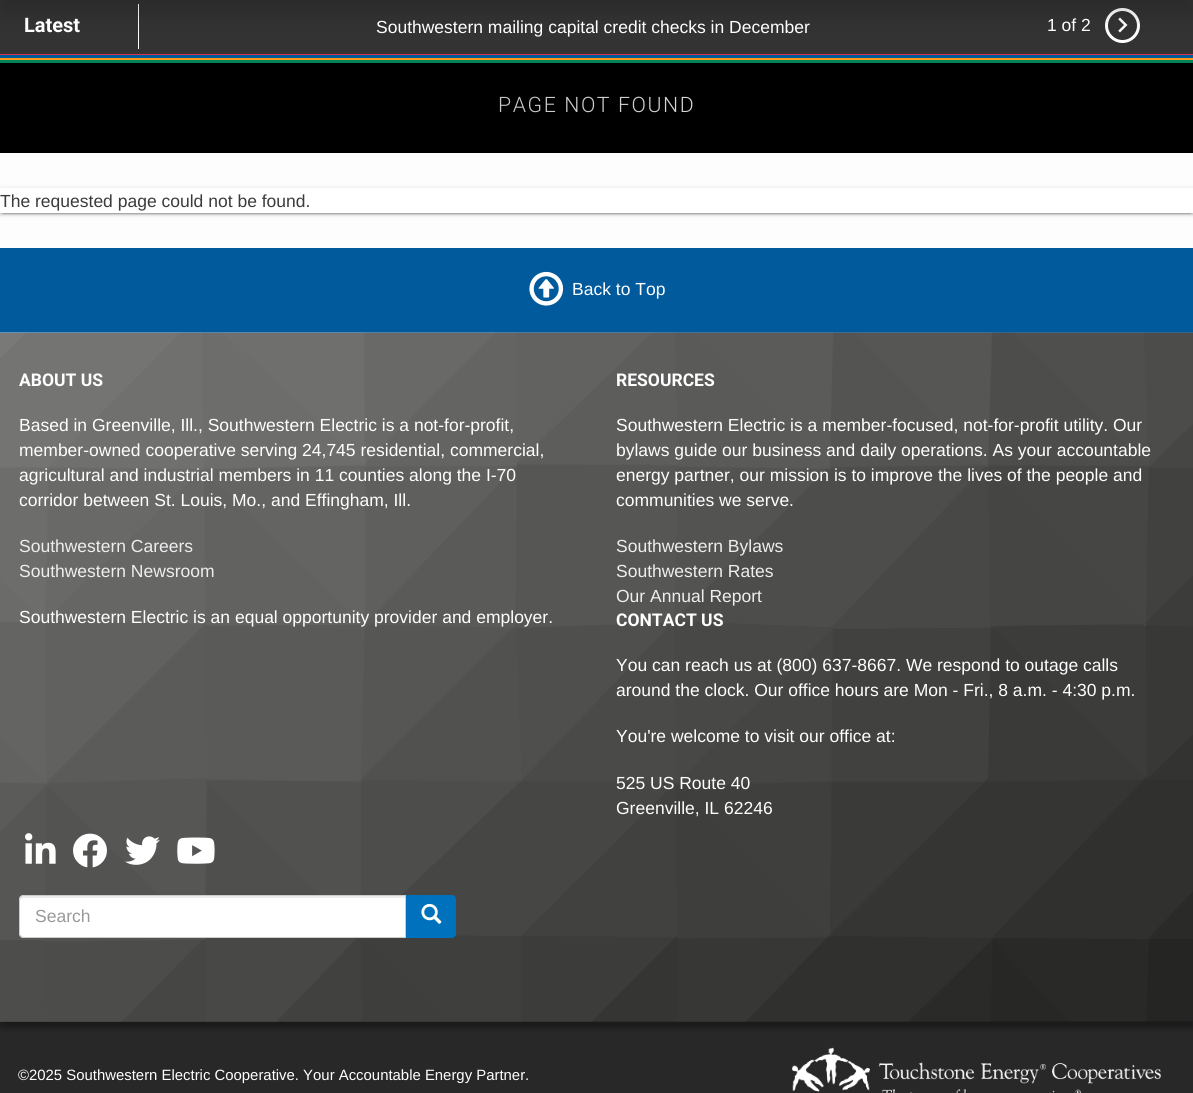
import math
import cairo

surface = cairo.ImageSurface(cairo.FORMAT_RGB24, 1193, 1093)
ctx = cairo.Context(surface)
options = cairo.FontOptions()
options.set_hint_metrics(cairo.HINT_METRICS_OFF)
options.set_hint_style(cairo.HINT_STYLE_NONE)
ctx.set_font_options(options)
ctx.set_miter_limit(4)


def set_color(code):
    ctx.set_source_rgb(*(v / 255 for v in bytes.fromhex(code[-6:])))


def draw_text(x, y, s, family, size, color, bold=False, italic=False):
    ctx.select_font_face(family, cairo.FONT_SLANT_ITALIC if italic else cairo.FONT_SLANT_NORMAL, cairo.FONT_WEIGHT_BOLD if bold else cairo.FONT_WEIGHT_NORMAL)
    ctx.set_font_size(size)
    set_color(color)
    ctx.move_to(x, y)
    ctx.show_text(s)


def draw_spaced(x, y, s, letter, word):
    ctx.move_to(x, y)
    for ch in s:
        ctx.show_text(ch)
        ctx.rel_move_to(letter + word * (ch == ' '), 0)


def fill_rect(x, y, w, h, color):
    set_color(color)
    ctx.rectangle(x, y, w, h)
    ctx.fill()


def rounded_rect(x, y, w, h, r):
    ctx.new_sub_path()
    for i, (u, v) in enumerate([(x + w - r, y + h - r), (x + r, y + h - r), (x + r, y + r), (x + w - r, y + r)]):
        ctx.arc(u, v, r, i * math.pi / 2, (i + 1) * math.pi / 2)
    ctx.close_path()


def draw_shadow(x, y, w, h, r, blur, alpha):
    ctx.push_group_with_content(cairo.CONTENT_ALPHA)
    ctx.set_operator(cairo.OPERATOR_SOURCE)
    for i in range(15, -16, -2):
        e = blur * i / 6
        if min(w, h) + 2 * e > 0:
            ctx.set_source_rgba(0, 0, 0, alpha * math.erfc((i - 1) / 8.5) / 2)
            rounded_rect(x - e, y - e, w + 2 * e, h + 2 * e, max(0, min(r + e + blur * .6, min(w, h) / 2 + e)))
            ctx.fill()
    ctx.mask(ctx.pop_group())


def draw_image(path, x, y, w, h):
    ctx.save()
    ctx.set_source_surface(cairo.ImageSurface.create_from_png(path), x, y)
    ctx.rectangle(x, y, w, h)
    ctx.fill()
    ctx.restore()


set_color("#fdfdfd")
ctx.paint()
fill_rect(0, 0, 1193, 54, "#333333")
fill_rect(138, 4, 1, 45, "#ffffff")
ctx.arc(1122.5, 25.5, 16, 0, 2 * math.pi)
ctx.set_line_width(3)
ctx.stroke()
draw_image("assets/img1.png", 1118, 17, 10, 16)
set_color("#000000")
draw_shadow(0, -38, 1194, 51, 0, 12.5, 0.18)
draw_text(24, 32, "Latest", "Roboto", 20, "#ffffff", bold=True)
draw_text(376, 33, "Southwestern mailing capital credit checks in December", "Liberation Sans", 17.5, "#ffffff")
draw_text(1047, 31, "1 of 2", "Liberation Sans", 17.5, "#ffffff")
fill_rect(0, 54, 1193, 1, "#d73647")
fill_rect(0, 55, 1193, 3, "#005a9c")
fill_rect(0, 58, 1193, 2, "#f8991d")
fill_rect(0, 60, 1193, 3, "#008457")
fill_rect(0, 63, 1193, 90, "#000000")
ctx.select_font_face("Roboto Light")
ctx.set_font_size(21.25)
set_color("#ffffff")
draw_spaced(498, 112, "PAGE NOT FOUND", 1.6, 0)
gradient = cairo.LinearGradient(274, 427, 920, -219)
gradient.add_color_stop_rgba(0, 0, 0, 0, 0.42)
gradient.add_color_stop_rgba(0.17, 0, 0, 0, 0.35)
gradient.add_color_stop_rgba(0.47, 0, 0, 0, 0.2)
gradient.add_color_stop_rgba(0.75, 0, 0, 0, 0.1)
gradient.add_color_stop_rgba(0.99, 0, 0, 0, 0.1)
ctx.set_source(gradient)
ctx.rectangle(500, 96, 193, 17)
ctx.fill()
set_color("#000000")
draw_shadow(0, 189, 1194, 25, 0, 3, 0.12)
draw_shadow(3, 194, 1188, 20, 0, 0.5, 0.2)
draw_shadow(0, 190, 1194, 25, 0, 1, 0.14)
fill_rect(0, 188, 1193, 25, "#ffffff")
draw_text(0, 207, "The requested page could not be found.", "Liberation Sans", 17.5, "#3b3b3b")
fill_rect(0, 248, 1193, 85, "#005a9c")
draw_image("assets/img2.png", 529, 271, 35, 35)
draw_text(572, 295, "Back to Top", "Liberation Sans", 17.5, "#ffffff")
fill_rect(0, 1021, 1193, 72, "#282829")
set_color("#000000")
draw_shadow(0, 339, 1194, 689, 0, 3, 0.35)
fill_rect(0, 333, 1193, 688, "#282827")
draw_image("assets/img3.png", 0, 332, 1193, 690)
draw_text(19, 386, "ABOUT US", "Roboto", 17.5, "#ffffff", bold=True)
draw_text(19, 431, "Based in Greenville, Ill., Southwestern Electric is a not-for-profit,", "Liberation Sans", 17.5, "#ffffff")
draw_text(19, 456, "member-owned cooperative serving 24,745 residential, commercial,", "Liberation Sans", 17.5, "#ffffff")
draw_text(19, 481, "agricultural and industrial members in 11 counties along the I-70", "Liberation Sans", 17.5, "#ffffff")
draw_text(19, 506, "corridor between St. Louis, Mo., and Effingham, Ill.", "Liberation Sans", 17.5, "#ffffff")
draw_text(19, 552, "Southwestern Careers", "Liberation Sans", 17.5, "#eeeeee")
draw_text(19, 577, "Southwestern Newsroom", "Liberation Sans", 17.5, "#eeeeee")
draw_text(19, 623, "Southwestern Electric is an equal opportunity provider and employer.", "Liberation Sans", 17.5, "#ffffff")
draw_text(616, 386, "RESOURCES", "Roboto", 17.5, "#ffffff", bold=True)
draw_text(616, 431, "Southwestern Electric is a member-focused, not-for-profit utility. Our", "Liberation Sans", 17.5, "#ffffff")
draw_text(616, 456, "bylaws guide our business and daily operations. As your accountable", "Liberation Sans", 17.5, "#ffffff")
draw_text(616, 481, "energy partner, our mission is to improve the lives of the people and", "Liberation Sans", 17.5, "#ffffff")
draw_text(616, 506, "communities we serve.", "Liberation Sans", 17.5, "#ffffff")
draw_text(616, 552, "Southwestern Bylaws", "Liberation Sans", 17.5, "#eeeeee")
draw_text(616, 577, "Southwestern Rates", "Liberation Sans", 17.5, "#eeeeee")
draw_text(616, 602, "Our Annual Report", "Liberation Sans", 17.5, "#eeeeee")
draw_text(616, 626, "CONTACT US", "Roboto", 17.5, "#ffffff", bold=True)
draw_text(616, 671, "You can reach us at (800) 637-8667. We respond to outage calls", "Liberation Sans", 17.5, "#ffffff")
draw_text(616, 696, "around the clock. Our office hours are Mon - Fri., 8 a.m. - 4:30 p.m.", "Liberation Sans", 17.5, "#ffffff")
draw_text(616, 742, "You're welcome to visit our office at:", "Liberation Sans", 17.5, "#ffffff")
draw_text(616, 789, "525 US Route 40", "Liberation Sans", 17.5, "#ffffff")
draw_text(616, 814, "Greenville, IL 62246", "Liberation Sans", 17.5, "#ffffff")
draw_image("assets/img4.png", 25, 833, 31, 31)
draw_image("assets/img5.png", 73, 833, 34, 35)
draw_image("assets/img6.png", 125, 836, 35, 29)
draw_image("assets/img7.png", 177, 837, 38, 27)
ctx.new_path()
ctx.move_to(24, 895)
ctx.line_to(406, 895)
ctx.line_to(406, 938)
ctx.line_to(24, 938)
ctx.curve_to(21, 938, 19, 936, 19, 933)
ctx.line_to(19, 900)
ctx.curve_to(19, 897, 21, 895, 24, 895)
ctx.close_path()
ctx.fill()
set_color("#ececec")
ctx.new_path()
ctx.move_to(24, 898)
ctx.line_to(405, 898)
ctx.line_to(405, 896)
ctx.line_to(24, 896)
ctx.curve_to(21, 896, 20, 898, 20, 901)
ctx.curve_to(20, 899, 22, 898, 24, 898)
ctx.close_path()
ctx.fill()
ctx.new_path()
ctx.move_to(24, 895.5)
ctx.line_to(405.5, 895.5)
ctx.line_to(405.5, 937.5)
ctx.line_to(24, 937.5)
ctx.curve_to(21.5, 937.5, 19.5, 935.5, 19.5, 933)
ctx.line_to(19.5, 900)
ctx.curve_to(19.5, 897.5, 21.5, 895.5, 24, 895.5)
ctx.close_path()
set_color("#cccccc")
ctx.set_line_width(1)
ctx.stroke()
draw_text(35, 922, "Search", "Liberation Sans", 17.5, "#999999")
set_color("#0071bc")
ctx.new_path()
ctx.move_to(406, 895)
ctx.line_to(452, 895)
ctx.curve_to(454, 895, 456, 897, 456, 899)
ctx.line_to(456, 934)
ctx.curve_to(456, 936, 454, 938, 452, 938)
ctx.line_to(406, 938)
ctx.close_path()
ctx.fill()
draw_image("assets/img8.png", 421, 903, 21, 21)
draw_text(18, 1080, "©2025 Southwestern Electric Cooperative. Your Accountable Energy Partner.", "Liberation Sans", 14.9, "#ffffff")
draw_image("assets/img9.png", 792, 1047, 370, 46)
surface.write_to_png("output.png")
